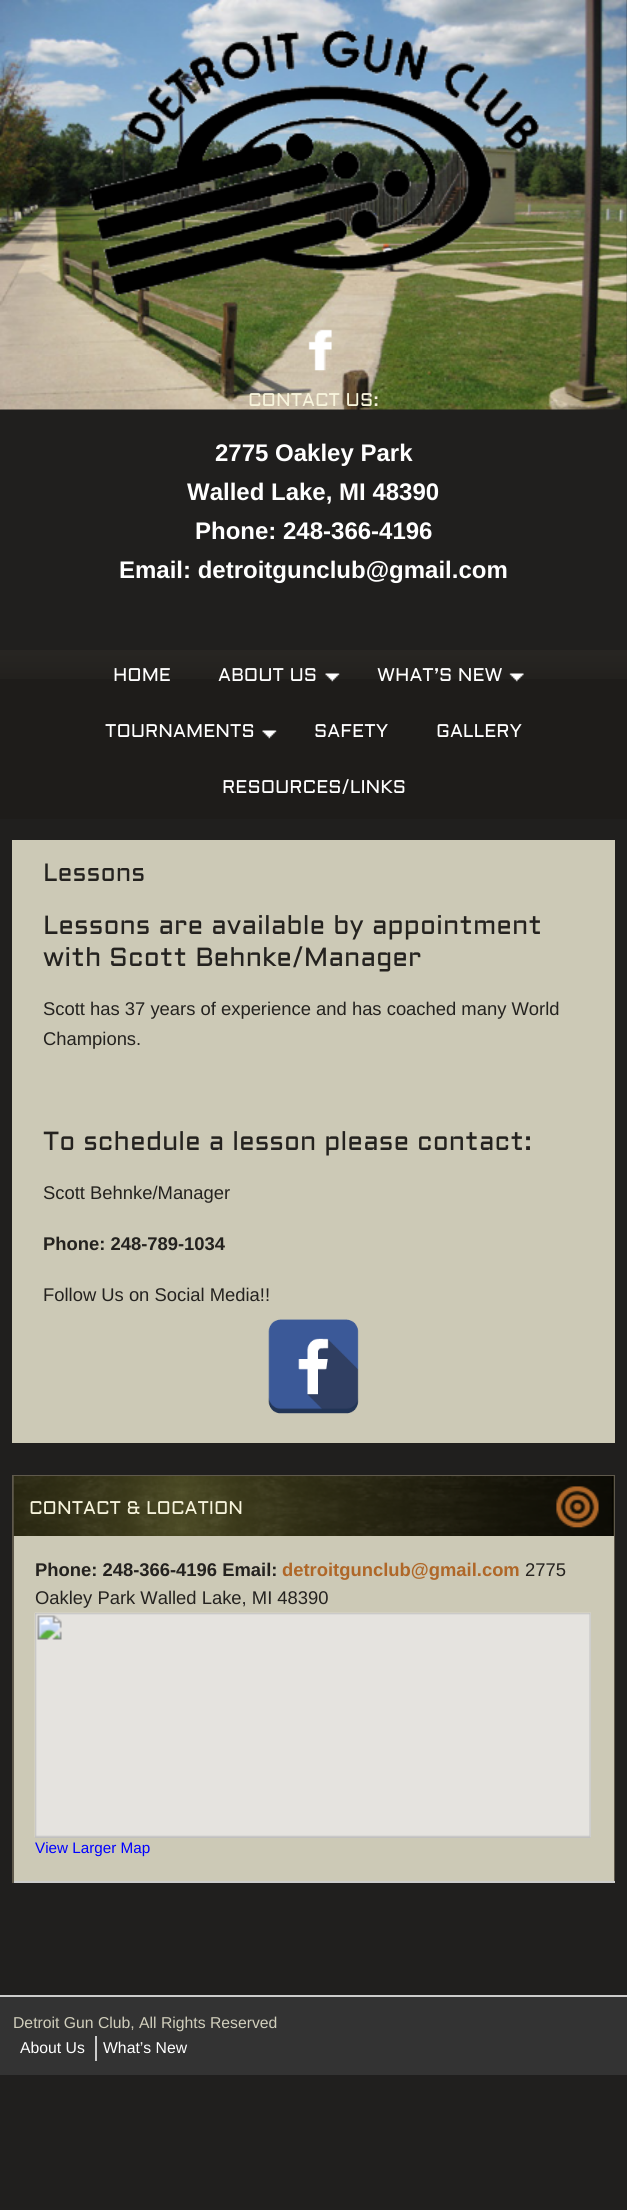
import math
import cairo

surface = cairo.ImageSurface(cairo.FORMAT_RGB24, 627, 2210)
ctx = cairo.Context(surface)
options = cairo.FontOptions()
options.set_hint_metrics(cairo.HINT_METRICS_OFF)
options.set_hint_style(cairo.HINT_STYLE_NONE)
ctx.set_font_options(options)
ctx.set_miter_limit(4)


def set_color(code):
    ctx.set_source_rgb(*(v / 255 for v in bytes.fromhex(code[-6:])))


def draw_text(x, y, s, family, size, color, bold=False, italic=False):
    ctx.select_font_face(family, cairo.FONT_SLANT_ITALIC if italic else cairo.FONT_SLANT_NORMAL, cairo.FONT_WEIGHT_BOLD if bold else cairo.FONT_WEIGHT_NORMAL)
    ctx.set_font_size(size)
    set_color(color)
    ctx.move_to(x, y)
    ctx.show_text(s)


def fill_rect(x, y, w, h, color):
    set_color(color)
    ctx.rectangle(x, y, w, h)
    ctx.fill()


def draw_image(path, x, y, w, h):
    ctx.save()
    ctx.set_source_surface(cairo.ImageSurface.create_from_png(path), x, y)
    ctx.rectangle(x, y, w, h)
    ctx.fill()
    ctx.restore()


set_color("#201f1e")
ctx.paint()
draw_image("assets/img1.png", 0, 0, 627, 410)
draw_image("assets/img2.png", 89, 30, 450, 266)
draw_image("assets/img3.png", 308, 329, 24, 42)
draw_text(248, 406, "CONTACT US:", "Aldrich", 18.4, "#f7f4dc")
draw_text(215, 461, "2775 Oakley Park", "Liberation Sans", 24, "#ffffff", bold=True)
draw_text(187, 500, "Walled Lake, MI 48390", "Liberation Sans", 24, "#ffffff", bold=True)
draw_text(195, 539, "Phone: 248-366-4196", "Liberation Sans", 24, "#ffffff", bold=True)
draw_text(119, 578, "Email: detroitgunclub@gmail.com", "Liberation Sans", 24, "#ffffff", bold=True)
fill_rect(0, 679, 627, 140, "#1e1c1a")
draw_image("assets/img4.png", 0, 650, 627, 29)
draw_text(113, 681, "HOME", "Aldrich", 18.4, "#ffffff")
draw_text(218, 681, "ABOUT US", "Aldrich", 18.4, "#ffffff")
draw_image("assets/img5.png", 325, 673, 15, 9)
draw_text(377, 681, "WHAT’S NEW", "Aldrich", 18.4, "#ffffff")
draw_image("assets/img6.png", 509, 673, 15, 9)
draw_text(105, 737, "TOURNAMENTS", "Aldrich", 18.4, "#ffffff")
draw_image("assets/img7.png", 262, 730, 15, 9)
draw_text(314, 737, "SAFETY", "Aldrich", 18.4, "#ffffff")
draw_text(436, 737, "GALLERY", "Aldrich", 18.4, "#ffffff")
draw_text(222, 793, "RESOURCES/LINKS", "Aldrich", 18.4, "#ffffff")
fill_rect(12, 840, 603, 603, "#ccc9b6")
draw_text(43, 881, "Lessons", "Aldrich", 25, "#24221f")
draw_text(43, 934, "Lessons are available by appointment", "Aldrich", 26.25, "#24221f")
draw_text(43, 966, "with Scott Behnke/Manager", "Aldrich", 26.25, "#24221f")
draw_text(43, 1015, "Scott has 37 years of experience and has coached many World", "Liberation Sans", 18.4, "#24221f")
draw_text(43, 1045, "Champions.", "Liberation Sans", 18.4, "#24221f")
draw_text(43, 1150, "To schedule a lesson please contact:", "Aldrich", 26.25, "#24221f")
draw_text(43, 1199, "Scott Behnke/Manager", "Liberation Sans", 18.4, "#24221f")
draw_text(43, 1250, "Phone: 248-789-1034", "Liberation Sans", 18.4, "#24221f", bold=True)
draw_text(43, 1301, "Follow Us on Social Media!!", "Liberation Sans", 18.4, "#24221f")
draw_image("assets/img8.png", 268, 1319, 91, 95)
fill_rect(14, 1536, 600, 345, "#ccc9b6")
fill_rect(12, 1475, 603, 1, "#5f594c")
fill_rect(614, 1475, 1, 408, "#5f594c")
fill_rect(12, 1881, 603, 2, "#cccccc")
fill_rect(12, 1475, 2, 408, "#5f594c")
fill_rect(613, 1476, 1, 60, "#252313")
draw_image("assets/img9.png", 13, 1476, 601, 60)
draw_text(29, 1514, "CONTACT & LOCATION", "Aldrich", 18.4, "#f7f4dc")
draw_text(35, 1576, "Phone: 248-366-4196 Email:", "Liberation Sans", 18.4, "#24221f", bold=True)
draw_text(282, 1576, "detroitgunclub@gmail.com", "Liberation Sans", 18.4, "#af6728", bold=True)
draw_text(525, 1576, "2775", "Liberation Sans", 18.4, "#24221f")
draw_text(35, 1604, "Oakley Park Walled Lake, MI 48390", "Liberation Sans", 18.4, "#24221f")
draw_image("assets/img10.png", 34, 1612, 557, 226)
draw_text(35, 1853, "View Larger Map", "Liberation Sans", 15.25, "#0000ff")
fill_rect(0, 1997, 627, 78, "#333333")
fill_rect(0, 1995, 627, 2, "#cccccc")
draw_text(13, 2028, "Detroit Gun Club, All Rights Reserved", "Liberation Sans", 15.75, "#d1cfbc")
fill_rect(95, 2036, 2, 25, "#cccccc")
draw_text(20, 2053, "About Us", "Liberation Sans", 15.75, "#ffffff")
draw_text(103, 2053, "What’s New", "Liberation Sans", 15.75, "#ffffff")
surface.write_to_png("output.png")
